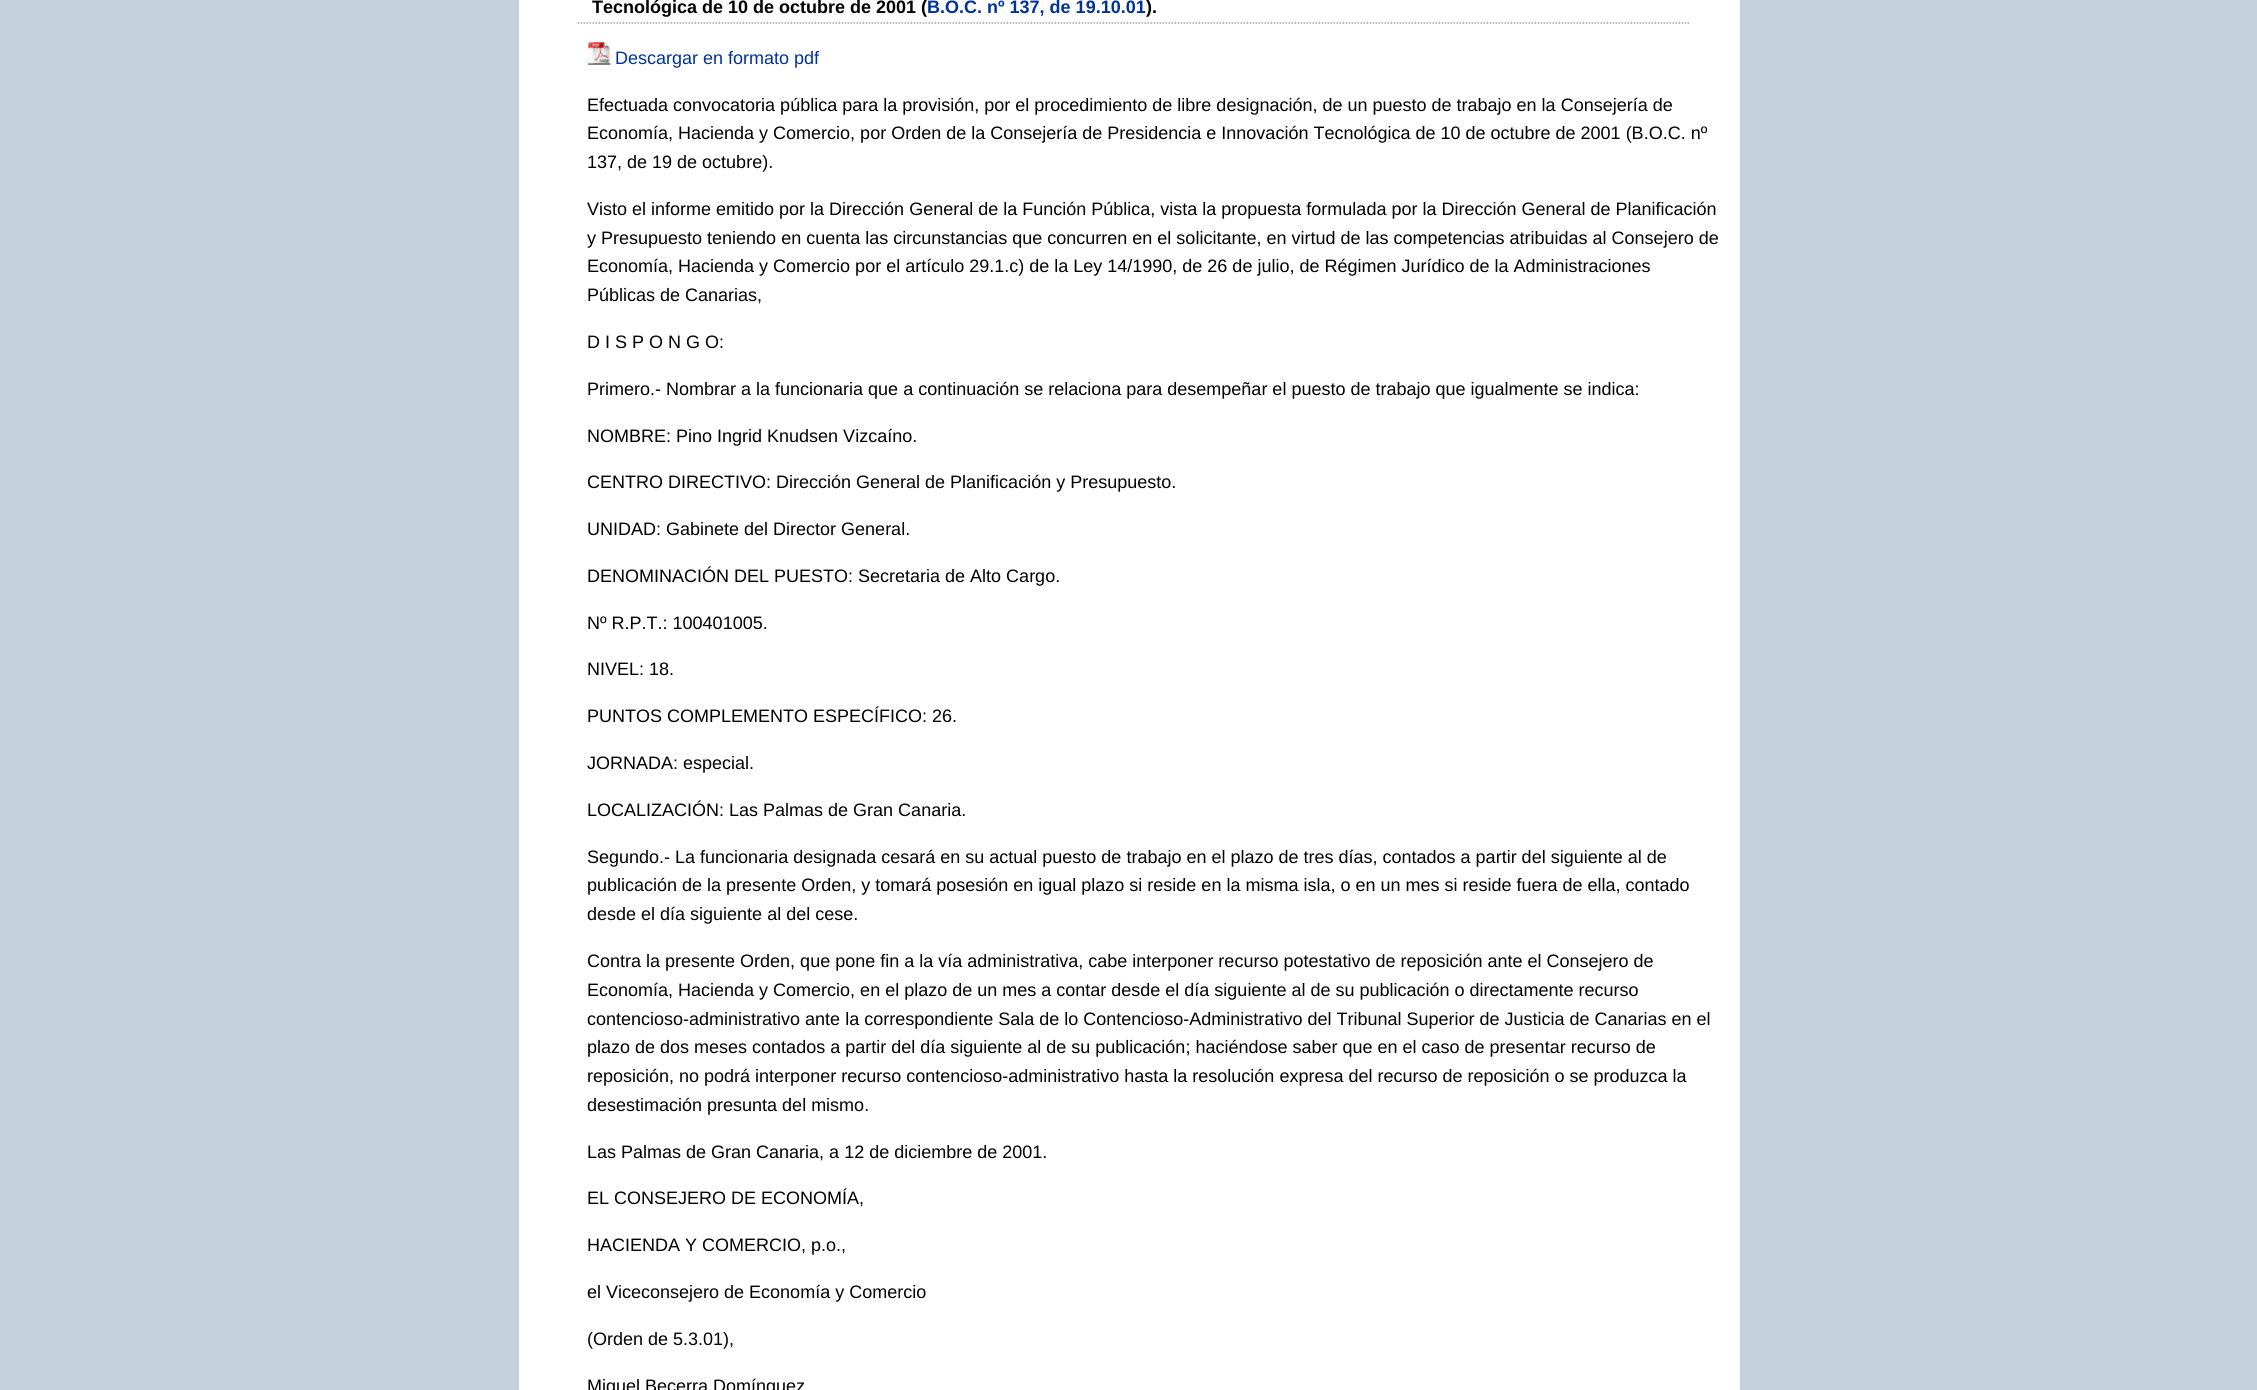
import math
import cairo

surface = cairo.ImageSurface(cairo.FORMAT_RGB24, 2257, 1390)
ctx = cairo.Context(surface)
options = cairo.FontOptions()
options.set_hint_metrics(cairo.HINT_METRICS_OFF)
options.set_hint_style(cairo.HINT_STYLE_NONE)
ctx.set_font_options(options)
ctx.set_miter_limit(4)


def set_color(code):
    ctx.set_source_rgb(*(v / 255 for v in bytes.fromhex(code[-6:])))


def draw_text(x, y, s, family, size, color, bold=False, italic=False):
    ctx.select_font_face(family, cairo.FONT_SLANT_ITALIC if italic else cairo.FONT_SLANT_NORMAL, cairo.FONT_WEIGHT_BOLD if bold else cairo.FONT_WEIGHT_NORMAL)
    ctx.set_font_size(size)
    set_color(color)
    ctx.move_to(x, y)
    ctx.show_text(s)


def fill_rect(x, y, w, h, color):
    set_color(color)
    ctx.rectangle(x, y, w, h)
    ctx.fill()


def draw_image(path, x, y, w, h):
    ctx.save()
    ctx.set_source_surface(cairo.ImageSurface.create_from_png(path), x, y)
    ctx.rectangle(x, y, w, h)
    ctx.fill()
    ctx.restore()


set_color("#c4d0dc")
ctx.paint()
fill_rect(519, 0, 1221, 1390, "#ffffff")
ctx.new_path()
ctx.move_to(577.5, 23)
ctx.line_to(1689, 23)
set_color("#a4a4a4")
ctx.set_line_width(1.5)
ctx.set_dash([1.5, 1.5])
ctx.stroke()
draw_text(592, 13, "Tecnológica de 10 de octubre de 2001 (", "Liberation Sans", 18, "#000000", bold=True)
draw_text(927, 13, "B.O.C. nº 137, de 19.10.01", "Liberation Sans", 18, "#003399", bold=True)
draw_text(1146, 13, ").", "Liberation Sans", 18, "#000000", bold=True)
draw_image("assets/img1.png", 588, 42, 23, 23)
draw_text(615, 64, "Descargar en formato pdf", "Liberation Sans", 18, "#003399")
draw_text(587, 111, "Efectuada convocatoria pública para la provisión, por el procedimiento de libre designación, de un puesto de trabajo en la Consejería de", "Liberation Sans", 18, "#000000")
draw_text(587, 139, "Economía, Hacienda y Comercio, por Orden de la Consejería de Presidencia e Innovación Tecnológica de 10 de octubre de 2001 (B.O.C. nº", "Liberation Sans", 18, "#000000")
draw_text(587, 168, "137, de 19 de octubre).", "Liberation Sans", 18, "#000000")
draw_text(587, 215, "Visto el informe emitido por la Dirección General de la Función Pública, vista la propuesta formulada por la Dirección General de Planificación", "Liberation Sans", 18, "#000000")
draw_text(587, 244, "y Presupuesto teniendo en cuenta las circunstancias que concurren en el solicitante, en virtud de las competencias atribuidas al Consejero de", "Liberation Sans", 18, "#000000")
draw_text(587, 272, "Economía, Hacienda y Comercio por el artículo 29.1.c) de la Ley 14/1990, de 26 de julio, de Régimen Jurídico de la Administraciones", "Liberation Sans", 18, "#000000")
draw_text(587, 301, "Públicas de Canarias,", "Liberation Sans", 18, "#000000")
draw_text(587, 348, "D I S P O N G O:", "Liberation Sans", 18, "#000000")
draw_text(587, 395, "Primero.- Nombrar a la funcionaria que a continuación se relaciona para desempeñar el puesto de trabajo que igualmente se indica:", "Liberation Sans", 18, "#000000")
draw_text(587, 442, "NOMBRE: Pino Ingrid Knudsen Vizcaíno.", "Liberation Sans", 18, "#000000")
draw_text(587, 488, "CENTRO DIRECTIVO: Dirección General de Planificación y Presupuesto.", "Liberation Sans", 18, "#000000")
draw_text(587, 535, "UNIDAD: Gabinete del Director General.", "Liberation Sans", 18, "#000000")
draw_text(587, 582, "DENOMINACIÓN DEL PUESTO: Secretaria de Alto Cargo.", "Liberation Sans", 18, "#000000")
draw_text(587, 629, "Nº R.P.T.: 100401005.", "Liberation Sans", 18, "#000000")
draw_text(587, 675, "NIVEL: 18.", "Liberation Sans", 18, "#000000")
draw_text(587, 722, "PUNTOS COMPLEMENTO ESPECÍFICO: 26.", "Liberation Sans", 18, "#000000")
draw_text(587, 769, "JORNADA: especial.", "Liberation Sans", 18, "#000000")
draw_text(587, 816, "LOCALIZACIÓN: Las Palmas de Gran Canaria.", "Liberation Sans", 18, "#000000")
draw_text(587, 863, "Segundo.- La funcionaria designada cesará en su actual puesto de trabajo en el plazo de tres días, contados a partir del siguiente al de", "Liberation Sans", 18, "#000000")
draw_text(587, 891, "publicación de la presente Orden, y tomará posesión en igual plazo si reside en la misma isla, o en un mes si reside fuera de ella, contado", "Liberation Sans", 18, "#000000")
draw_text(587, 920, "desde el día siguiente al del cese.", "Liberation Sans", 18, "#000000")
draw_text(587, 967, "Contra la presente Orden, que pone fin a la vía administrativa, cabe interponer recurso potestativo de reposición ante el Consejero de", "Liberation Sans", 18, "#000000")
draw_text(587, 996, "Economía, Hacienda y Comercio, en el plazo de un mes a contar desde el día siguiente al de su publicación o directamente recurso", "Liberation Sans", 18, "#000000")
draw_text(587, 1025, "contencioso-administrativo ante la correspondiente Sala de lo Contencioso-Administrativo del Tribunal Superior de Justicia de Canarias en el", "Liberation Sans", 18, "#000000")
draw_text(587, 1053, "plazo de dos meses contados a partir del día siguiente al de su publicación; haciéndose saber que en el caso de presentar recurso de", "Liberation Sans", 18, "#000000")
draw_text(587, 1082, "reposición, no podrá interponer recurso contencioso-administrativo hasta la resolución expresa del recurso de reposición o se produzca la", "Liberation Sans", 18, "#000000")
draw_text(587, 1111, "desestimación presunta del mismo.", "Liberation Sans", 18, "#000000")
draw_text(587, 1158, "Las Palmas de Gran Canaria, a 12 de diciembre de 2001.", "Liberation Sans", 18, "#000000")
draw_text(587, 1204, "EL CONSEJERO DE ECONOMÍA,", "Liberation Sans", 18, "#000000")
draw_text(587, 1251, "HACIENDA Y COMERCIO, p.o.,", "Liberation Sans", 18, "#000000")
draw_text(587, 1298, "el Viceconsejero de Economía y Comercio", "Liberation Sans", 18, "#000000")
draw_text(587, 1345, "(Orden de 5.3.01),", "Liberation Sans", 18, "#000000")
draw_text(587, 1392, "Miguel Becerra Domínguez", "Liberation Sans", 18, "#000000")
surface.write_to_png("output.png")
